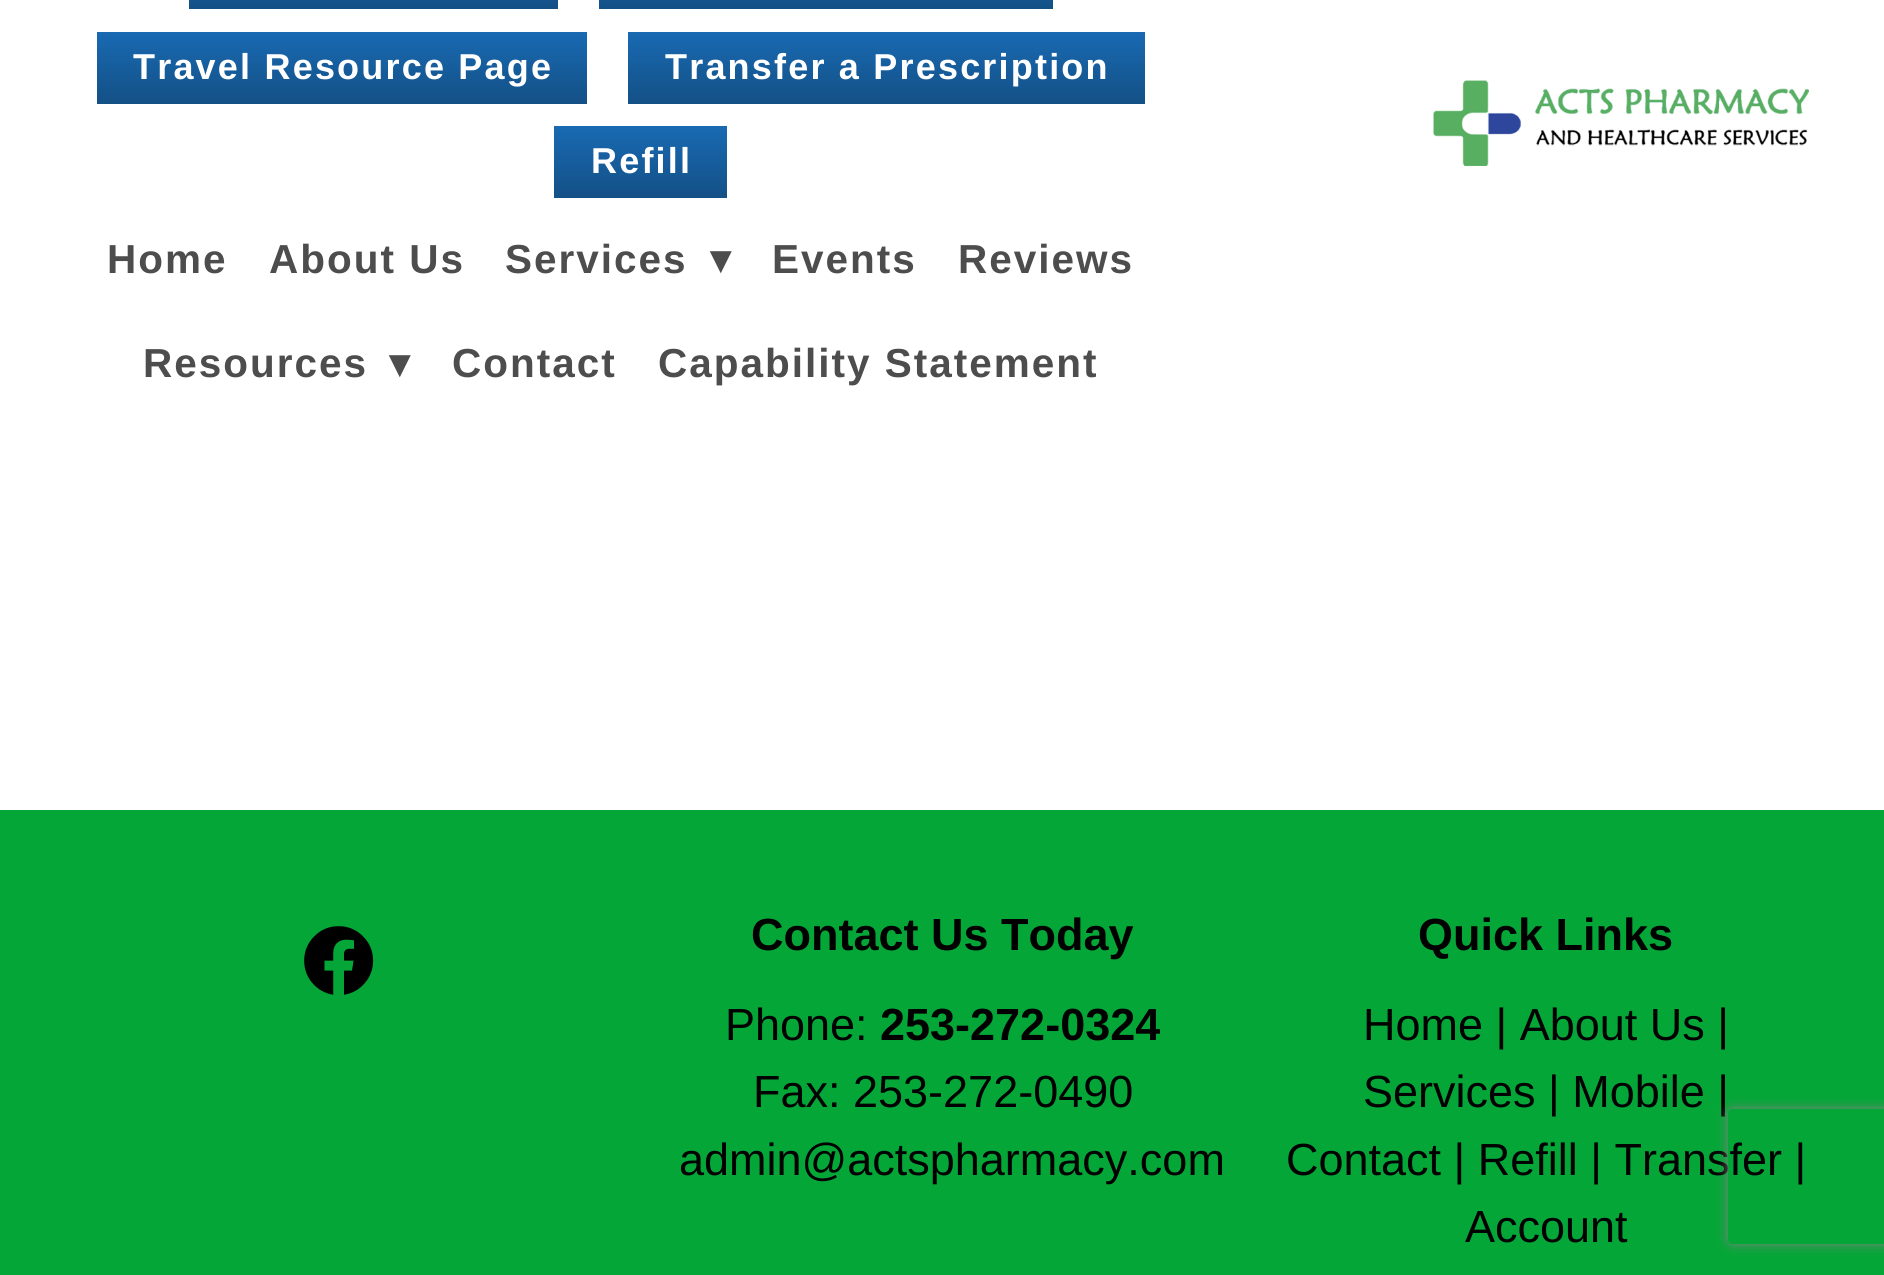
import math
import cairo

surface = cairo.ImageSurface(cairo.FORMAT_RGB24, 1884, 1275)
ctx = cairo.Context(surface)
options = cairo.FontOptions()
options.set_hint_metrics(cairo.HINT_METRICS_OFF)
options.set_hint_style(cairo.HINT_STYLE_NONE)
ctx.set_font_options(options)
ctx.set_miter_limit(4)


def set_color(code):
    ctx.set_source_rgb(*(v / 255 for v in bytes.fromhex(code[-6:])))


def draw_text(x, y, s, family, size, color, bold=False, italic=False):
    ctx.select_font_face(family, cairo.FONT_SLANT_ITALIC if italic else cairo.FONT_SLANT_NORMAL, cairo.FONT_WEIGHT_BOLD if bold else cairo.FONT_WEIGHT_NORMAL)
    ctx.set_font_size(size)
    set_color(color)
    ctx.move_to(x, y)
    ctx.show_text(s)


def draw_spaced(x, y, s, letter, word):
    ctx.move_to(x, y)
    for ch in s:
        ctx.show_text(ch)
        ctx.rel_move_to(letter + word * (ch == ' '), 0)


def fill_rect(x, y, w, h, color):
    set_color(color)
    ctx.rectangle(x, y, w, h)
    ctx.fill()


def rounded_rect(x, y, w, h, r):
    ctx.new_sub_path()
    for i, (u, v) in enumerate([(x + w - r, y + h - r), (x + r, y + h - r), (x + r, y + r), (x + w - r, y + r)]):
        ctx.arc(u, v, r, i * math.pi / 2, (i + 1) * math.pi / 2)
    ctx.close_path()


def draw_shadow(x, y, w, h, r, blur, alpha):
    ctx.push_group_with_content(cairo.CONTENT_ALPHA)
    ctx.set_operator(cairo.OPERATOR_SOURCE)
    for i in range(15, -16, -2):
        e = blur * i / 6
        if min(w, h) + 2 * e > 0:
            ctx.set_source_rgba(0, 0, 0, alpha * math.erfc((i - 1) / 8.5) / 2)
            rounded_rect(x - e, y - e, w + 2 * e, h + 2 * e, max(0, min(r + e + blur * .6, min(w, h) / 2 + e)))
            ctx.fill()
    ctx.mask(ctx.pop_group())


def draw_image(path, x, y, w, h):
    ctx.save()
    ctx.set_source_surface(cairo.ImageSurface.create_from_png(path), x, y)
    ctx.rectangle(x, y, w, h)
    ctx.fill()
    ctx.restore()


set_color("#ffffff")
ctx.paint()
gradient = cairo.LinearGradient(374, -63, 374, 9)
gradient.add_color_stop_rgba(0, 0.098, 0.416, 0.702, 1)
gradient.add_color_stop_rgba(1, 0.075, 0.314, 0.525, 1)
ctx.set_source(gradient)
ctx.rectangle(189, 0, 369, 9)
ctx.fill()
gradient = cairo.LinearGradient(826, -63, 826, 9)
gradient.add_color_stop_rgba(0, 0.098, 0.416, 0.702, 1)
gradient.add_color_stop_rgba(1, 0.075, 0.314, 0.525, 1)
ctx.set_source(gradient)
ctx.rectangle(599, 0, 454, 9)
ctx.fill()
gradient = cairo.LinearGradient(342, 31, 342, 104)
gradient.add_color_stop_rgba(0, 0.098, 0.416, 0.702, 1)
gradient.add_color_stop_rgba(1, 0.075, 0.314, 0.525, 1)
ctx.set_source(gradient)
ctx.rectangle(97, 32, 490, 72)
ctx.fill()
ctx.select_font_face("Liberation Sans", cairo.FONT_SLANT_NORMAL, cairo.FONT_WEIGHT_BOLD)
ctx.set_font_size(36)
set_color("#ffffff")
draw_spaced(133, 79, "Travel Resource Page", 2.2, 0)
gradient = cairo.LinearGradient(887, 31, 887, 104)
gradient.add_color_stop_rgba(0, 0.098, 0.416, 0.702, 1)
gradient.add_color_stop_rgba(1, 0.075, 0.314, 0.525, 1)
ctx.set_source(gradient)
ctx.rectangle(628, 32, 517, 72)
ctx.fill()
set_color("#ffffff")
draw_spaced(665, 79, "Transfer a Prescription", 2.2, 0)
gradient = cairo.LinearGradient(640, 126, 640, 198)
gradient.add_color_stop_rgba(0, 0.098, 0.416, 0.702, 1)
gradient.add_color_stop_rgba(1, 0.075, 0.314, 0.525, 1)
ctx.set_source(gradient)
ctx.rectangle(554, 126, 173, 72)
ctx.fill()
set_color("#ffffff")
draw_spaced(591, 173, "Refill", 2.2, 0)
ctx.set_font_size(40.5)
set_color("#4d4d4d")
draw_spaced(107, 273, "Home", 2, 0)
draw_spaced(269, 273, "About Us", 2, 0)
draw_spaced(505, 273, "Services", 2, 0)
ctx.select_font_face("DejaVu Sans", cairo.FONT_SLANT_NORMAL, cairo.FONT_WEIGHT_BOLD)
draw_spaced(710, 273, "▾", 2, 0)
ctx.select_font_face("Liberation Sans", cairo.FONT_SLANT_NORMAL, cairo.FONT_WEIGHT_BOLD)
draw_spaced(772, 273, "Events", 2, 0)
draw_spaced(958, 273, "Reviews", 2, 0)
draw_spaced(143, 377, "Resources", 2, 0)
ctx.select_font_face("DejaVu Sans", cairo.FONT_SLANT_NORMAL, cairo.FONT_WEIGHT_BOLD)
draw_spaced(389, 377, "▾", 2, 0)
ctx.select_font_face("Liberation Sans", cairo.FONT_SLANT_NORMAL, cairo.FONT_WEIGHT_BOLD)
draw_spaced(452, 377, "Contact", 2, 0)
draw_spaced(658, 377, "Capability Statement", 2, 0)
draw_image("assets/img1.png", 1433, 80, 376, 86)
fill_rect(0, 810, 1884, 465, "#04a637")
draw_image("assets/img2.png", 304, 926, 70, 69)
draw_text(751, 950, "Contact Us Today", "Liberation Sans", 45, "#000000", bold=True)
draw_text(725, 1040, "Phone:", "Liberation Sans", 45, "#000000")
draw_text(880, 1040, "253-272-0324", "Liberation Sans", 45, "#000000", bold=True)
draw_text(753, 1107, "Fax: 253-272-0490", "Liberation Sans", 45, "#000000")
draw_text(679, 1175, "admin@actspharmacy.com", "Liberation Sans", 45, "#000000")
draw_text(1418, 950, "Quick Links", "Liberation Sans", 45, "#000000", bold=True)
draw_text(1363, 1040, "Home | About Us |", "Liberation Sans", 45, "#000000")
draw_text(1363, 1107, "Services | Mobile |", "Liberation Sans", 45, "#000000")
draw_text(1286, 1175, "Contact | Refill | Transfer |", "Liberation Sans", 45, "#000000")
draw_text(1465, 1242, "Account", "Liberation Sans", 45, "#000000")
ctx.save()
ctx.set_fill_rule(cairo.FILL_RULE_EVEN_ODD)
ctx.new_path()
ctx.move_to(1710, 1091)
ctx.line_to(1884, 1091)
ctx.line_to(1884, 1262)
ctx.line_to(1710, 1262)
ctx.close_path()
ctx.move_to(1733, 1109)
ctx.line_to(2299, 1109)
ctx.curve_to(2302, 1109, 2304, 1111, 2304, 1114)
ctx.line_to(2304, 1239)
ctx.curve_to(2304, 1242, 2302, 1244, 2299, 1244)
ctx.line_to(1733, 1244)
ctx.curve_to(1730, 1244, 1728, 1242, 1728, 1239)
ctx.line_to(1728, 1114)
ctx.curve_to(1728, 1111, 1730, 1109, 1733, 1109)
ctx.close_path()
ctx.clip()
set_color("#808080")
draw_shadow(1728, 1109, 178, 135, 5, 5.5, 1)
ctx.restore()
surface.write_to_png("output.png")
